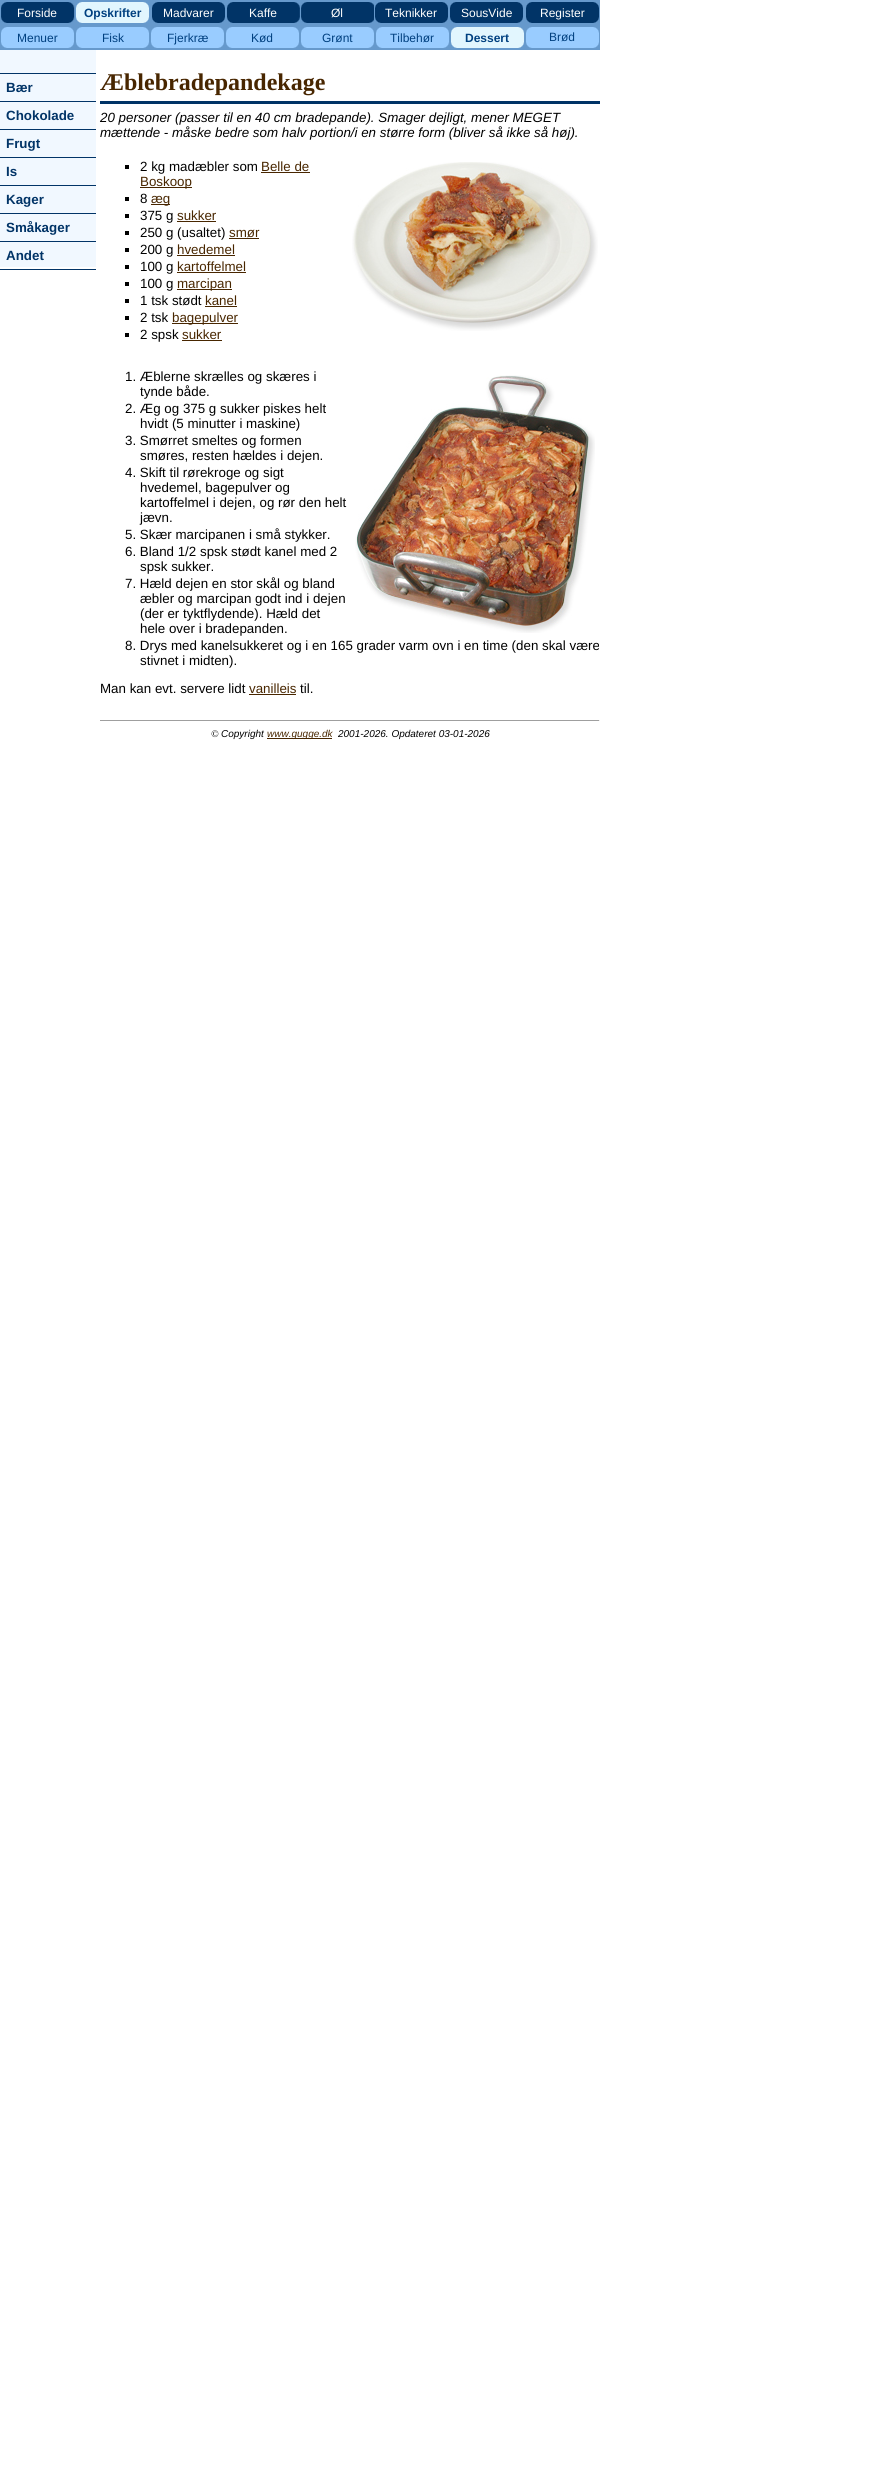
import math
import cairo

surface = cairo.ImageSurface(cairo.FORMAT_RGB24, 892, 2479)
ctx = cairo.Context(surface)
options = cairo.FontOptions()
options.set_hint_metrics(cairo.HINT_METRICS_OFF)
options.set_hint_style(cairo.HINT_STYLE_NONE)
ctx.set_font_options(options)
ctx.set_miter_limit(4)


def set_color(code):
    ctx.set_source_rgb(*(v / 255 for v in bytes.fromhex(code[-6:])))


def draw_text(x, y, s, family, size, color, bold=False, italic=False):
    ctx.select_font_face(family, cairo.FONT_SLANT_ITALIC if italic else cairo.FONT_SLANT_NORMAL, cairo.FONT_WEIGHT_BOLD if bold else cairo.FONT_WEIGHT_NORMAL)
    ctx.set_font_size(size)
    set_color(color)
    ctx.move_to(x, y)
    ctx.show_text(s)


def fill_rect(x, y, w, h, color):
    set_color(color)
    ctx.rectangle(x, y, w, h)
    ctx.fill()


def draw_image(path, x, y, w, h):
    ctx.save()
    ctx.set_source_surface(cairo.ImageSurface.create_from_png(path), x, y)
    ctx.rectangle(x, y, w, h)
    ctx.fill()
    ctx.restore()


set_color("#ffffff")
ctx.paint()
draw_image("assets/img1.png", 0, 0, 75, 25)
draw_text(17, 17, "Forside", "Liberation Sans", 12, "#ffffff")
draw_image("assets/img2.png", 75, 0, 76, 25)
draw_text(84, 17, "Opskrifter", "Liberation Sans", 12, "#004080", bold=True)
draw_image("assets/img3.png", 151, 0, 75, 25)
draw_text(163, 17, "Madvarer", "Liberation Sans", 12, "#ffffff")
draw_image("assets/img4.png", 226, 0, 74, 25)
draw_text(249, 17, "Kaffe", "Liberation Sans", 12, "#ffffff")
draw_image("assets/img5.png", 300, 0, 74, 25)
draw_text(331, 17, "Øl", "Liberation Sans", 12, "#ffffff")
draw_image("assets/img3.png", 374, 0, 75, 25)
draw_text(385, 17, "Teknikker", "Liberation Sans", 12, "#ffffff")
draw_image("assets/img6.png", 449, 0, 76, 25)
draw_text(461, 17, "SousVide", "Liberation Sans", 12, "#ffffff")
draw_image("assets/img3.png", 525, 0, 75, 25)
draw_text(540, 17, "Register", "Liberation Sans", 12, "#ffffff")
draw_image("assets/img7.png", 0, 25, 75, 25)
draw_text(17, 42, "Menuer", "Liberation Sans", 12, "#004080")
draw_image("assets/img7.png", 75, 25, 75, 25)
draw_text(102, 42, "Fisk", "Liberation Sans", 12, "#004080")
draw_image("assets/img7.png", 150, 25, 75, 25)
draw_text(167, 42, "Fjerkræ", "Liberation Sans", 12, "#004080")
draw_image("assets/img7.png", 225, 25, 75, 25)
draw_text(251, 42, "Kød", "Liberation Sans", 12, "#004080")
draw_image("assets/img7.png", 300, 25, 75, 25)
draw_text(322, 42, "Grønt", "Liberation Sans", 12, "#004080")
draw_image("assets/img7.png", 375, 25, 75, 25)
draw_text(390, 42, "Tilbehør", "Liberation Sans", 12, "#004080")
draw_image("assets/img8.png", 450, 25, 75, 25)
draw_text(465, 42, "Dessert", "Liberation Sans", 12, "#004080", bold=True)
draw_image("assets/img7.png", 525, 25, 75, 25)
draw_text(549, 41, "Brød", "Liberation Sans", 12, "#004080")
fill_rect(0, 50, 96, 217, "#f1f8ff")
fill_rect(0, 73, 96, 1, "#013467")
fill_rect(0, 101, 96, 1, "#013467")
draw_text(6, 92, "Bær", "Liberation Sans", 13.35, "#013467", bold=True)
fill_rect(0, 129, 96, 1, "#013467")
draw_text(6, 120, "Chokolade", "Liberation Sans", 13.35, "#013467", bold=True)
fill_rect(0, 157, 96, 1, "#013467")
draw_text(6, 148, "Frugt", "Liberation Sans", 13.35, "#013467", bold=True)
fill_rect(0, 185, 96, 1, "#013467")
draw_text(6, 176, "Is", "Liberation Sans", 13.35, "#013467", bold=True)
fill_rect(0, 213, 96, 1, "#013467")
draw_text(6, 204, "Kager", "Liberation Sans", 13.35, "#013467", bold=True)
fill_rect(0, 241, 96, 1, "#013467")
draw_text(6, 232, "Småkager", "Liberation Sans", 13.35, "#013467", bold=True)
fill_rect(0, 269, 96, 1, "#013467")
draw_text(6, 260, "Andet", "Liberation Sans", 13.35, "#013467", bold=True)
draw_text(100, 90, "Æblebradepandekage", "Liberation Serif", 24, "#482600", bold=True)
fill_rect(100, 101, 500, 3, "#003366")
draw_text(100, 122, "20 personer (passer til en 40 cm bradepande). Smager dejligt, mener MEGET", "Liberation Sans", 13.35, "#000000", italic=True)
draw_text(100, 137, "mættende - måske bedre som halv portion/i en større form (bliver så ikke så høj).", "Liberation Sans", 13.35, "#000000", italic=True)
fill_rect(125, 165, 4, 4, "#000000")
draw_text(140, 171, "2 kg madæbler som", "Liberation Sans", 13.35, "#000000")
draw_text(261, 171, "Belle de", "Liberation Sans", 13.35, "#482600")
fill_rect(261, 172, 49, 1, "#482600")
fill_rect(140, 187, 52, 1, "#482600")
draw_text(140, 186, "Boskoop", "Liberation Sans", 13.35, "#482600")
fill_rect(125, 197, 4, 4, "#000000")
draw_text(140, 203, "8", "Liberation Sans", 13.35, "#000000")
fill_rect(151, 204, 19, 1, "#482600")
draw_text(151, 203, "æg", "Liberation Sans", 13.35, "#482600")
fill_rect(125, 214, 4, 4, "#000000")
draw_text(140, 220, "375 g", "Liberation Sans", 13.35, "#000000")
draw_text(177, 220, "sukker", "Liberation Sans", 13.35, "#482600")
fill_rect(177, 221, 39, 1, "#482600")
fill_rect(125, 231, 4, 4, "#000000")
draw_text(140, 237, "250 g (usaltet)", "Liberation Sans", 13.35, "#000000")
draw_text(229, 237, "smør", "Liberation Sans", 13.35, "#482600")
fill_rect(229, 238, 30, 1, "#482600")
fill_rect(125, 248, 4, 4, "#000000")
draw_text(140, 254, "200 g", "Liberation Sans", 13.35, "#000000")
draw_text(177, 254, "hvedemel", "Liberation Sans", 13.35, "#482600")
fill_rect(177, 255, 58, 1, "#482600")
fill_rect(125, 265, 4, 4, "#000000")
draw_text(140, 271, "100 g", "Liberation Sans", 13.35, "#000000")
draw_text(177, 271, "kartoffelmel", "Liberation Sans", 13.35, "#482600")
fill_rect(177, 272, 69, 1, "#482600")
fill_rect(125, 282, 4, 4, "#000000")
draw_text(140, 288, "100 g", "Liberation Sans", 13.35, "#000000")
fill_rect(177, 289, 55, 1, "#482600")
draw_text(177, 288, "marcipan", "Liberation Sans", 13.35, "#482600")
fill_rect(125, 299, 4, 4, "#000000")
draw_text(140, 305, "1 tsk stødt", "Liberation Sans", 13.35, "#000000")
draw_text(205, 305, "kanel", "Liberation Sans", 13.35, "#482600")
fill_rect(205, 306, 32, 1, "#482600")
fill_rect(125, 316, 4, 4, "#000000")
draw_text(140, 322, "2 tsk", "Liberation Sans", 13.35, "#000000")
fill_rect(172, 323, 66, 1, "#482600")
draw_text(172, 322, "bagepulver", "Liberation Sans", 13.35, "#482600")
fill_rect(125, 333, 4, 4, "#000000")
draw_text(140, 339, "2 spsk", "Liberation Sans", 13.35, "#000000")
draw_text(182, 339, "sukker", "Liberation Sans", 13.35, "#482600")
fill_rect(182, 340, 40, 1, "#482600")
draw_image("assets/img9.png", 352, 162, 246, 169)
draw_text(125, 381, "1. Æblerne skrælles og skæres i", "Liberation Sans", 13.35, "#000000")
draw_text(140, 396, "tynde både.", "Liberation Sans", 13.35, "#000000")
draw_image("assets/img10.png", 355, 375, 240, 258)
draw_text(125, 413, "2. Æg og 375 g sukker piskes helt", "Liberation Sans", 13.35, "#000000")
draw_text(140, 428, "hvidt (5 minutter i maskine)", "Liberation Sans", 13.35, "#000000")
draw_text(125, 445, "3. Smørret smeltes og formen", "Liberation Sans", 13.35, "#000000")
draw_text(140, 460, "smøres, resten hældes i dejen.", "Liberation Sans", 13.35, "#000000")
draw_text(125, 477, "4. Skift til rørekroge og sigt", "Liberation Sans", 13.35, "#000000")
draw_text(140, 492, "hvedemel, bagepulver og", "Liberation Sans", 13.35, "#000000")
draw_text(140, 507, "kartoffelmel i dejen, og rør den helt", "Liberation Sans", 13.35, "#000000")
draw_text(140, 522, "jævn.", "Liberation Sans", 13.35, "#000000")
draw_text(125, 539, "5. Skær marcipanen i små stykker.", "Liberation Sans", 13.35, "#000000")
draw_text(125, 556, "6. Bland 1/2 spsk stødt kanel med 2", "Liberation Sans", 13.35, "#000000")
draw_text(140, 571, "spsk sukker.", "Liberation Sans", 13.35, "#000000")
draw_text(125, 588, "7. Hæld dejen en stor skål og bland", "Liberation Sans", 13.35, "#000000")
draw_text(140, 603, "æbler og marcipan godt ind i dejen", "Liberation Sans", 13.35, "#000000")
draw_text(140, 618, "(der er tyktflydende). Hæld det", "Liberation Sans", 13.35, "#000000")
draw_text(140, 633, "hele over i bradepanden.", "Liberation Sans", 13.35, "#000000")
draw_text(125, 650, "8. Drys med kanelsukkeret og i en 165 grader varm ovn i en time (den skal være", "Liberation Sans", 13.35, "#000000")
draw_text(140, 665, "stivnet i midten).", "Liberation Sans", 13.35, "#000000")
draw_text(100, 693, "Man kan evt. servere lidt", "Liberation Sans", 13.35, "#000000")
draw_text(249, 693, "vanilleis", "Liberation Sans", 13.35, "#482600")
fill_rect(249, 694, 47, 1, "#482600")
draw_text(300, 693, "til.", "Liberation Sans", 13.35, "#000000")
fill_rect(100, 720, 500, 1, "#9f9f9f")
fill_rect(599, 720, 1, 1, "#eeeeee")
draw_text(211, 737, "©", "Liberation Serif", 10, "#000000", italic=True)
draw_text(221, 737, "Copyright", "Liberation Sans", 10, "#000000", italic=True)
fill_rect(267, 738, 65, 1, "#482600")
draw_text(267, 737, "www.gugge.dk", "Liberation Sans", 10, "#482600", italic=True)
draw_text(338, 737, "2001-2026. Opdateret 03-01-2026", "Liberation Sans", 10, "#000000", italic=True)
surface.write_to_png("output.png")
